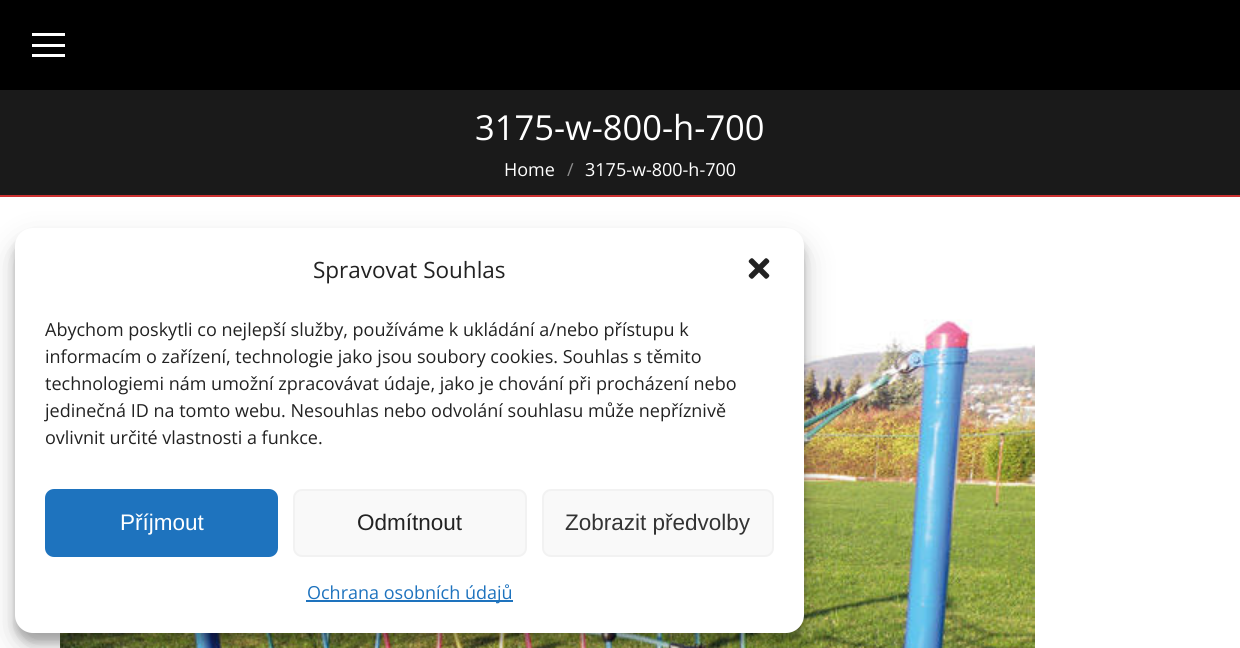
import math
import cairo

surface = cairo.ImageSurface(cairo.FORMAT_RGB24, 1240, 648)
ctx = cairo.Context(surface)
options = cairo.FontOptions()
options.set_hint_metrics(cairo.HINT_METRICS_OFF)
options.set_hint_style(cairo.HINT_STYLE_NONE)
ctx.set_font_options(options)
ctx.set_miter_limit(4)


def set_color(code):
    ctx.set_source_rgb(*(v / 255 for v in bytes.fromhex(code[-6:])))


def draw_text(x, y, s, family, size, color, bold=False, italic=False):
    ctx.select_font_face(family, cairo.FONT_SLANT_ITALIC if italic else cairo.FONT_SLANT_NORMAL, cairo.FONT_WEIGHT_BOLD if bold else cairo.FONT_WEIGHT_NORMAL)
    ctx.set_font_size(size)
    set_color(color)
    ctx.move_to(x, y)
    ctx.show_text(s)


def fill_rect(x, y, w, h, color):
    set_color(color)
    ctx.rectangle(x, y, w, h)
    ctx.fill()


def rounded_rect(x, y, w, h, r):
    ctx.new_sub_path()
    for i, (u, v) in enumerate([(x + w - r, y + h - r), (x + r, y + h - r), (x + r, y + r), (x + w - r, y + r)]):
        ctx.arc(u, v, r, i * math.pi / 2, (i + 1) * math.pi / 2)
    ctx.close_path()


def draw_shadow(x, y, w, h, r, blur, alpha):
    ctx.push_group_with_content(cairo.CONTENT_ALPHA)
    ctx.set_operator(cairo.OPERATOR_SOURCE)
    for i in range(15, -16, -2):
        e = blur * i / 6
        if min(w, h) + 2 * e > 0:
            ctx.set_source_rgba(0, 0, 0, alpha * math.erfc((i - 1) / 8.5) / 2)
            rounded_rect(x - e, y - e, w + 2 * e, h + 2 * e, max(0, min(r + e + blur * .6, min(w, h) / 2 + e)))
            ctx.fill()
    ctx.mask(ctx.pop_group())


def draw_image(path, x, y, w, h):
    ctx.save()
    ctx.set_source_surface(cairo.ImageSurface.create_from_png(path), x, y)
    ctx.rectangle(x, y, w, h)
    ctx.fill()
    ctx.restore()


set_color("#ffffff")
ctx.paint()
fill_rect(0, 0, 1240, 90, "#000000")
fill_rect(32, 33, 33, 3, "#ffffff")
fill_rect(32, 44, 33, 3, "#ffffff")
fill_rect(32, 54, 33, 3, "#ffffff")
fill_rect(0, 90, 1240, 105, "#1a1a1a")
fill_rect(0, 195, 1240, 2, "#cb3131")
draw_text(475, 140, "3175-w-800-h-700", "Open Sans", 34.5, "#ffffff")
draw_text(504, 176, "Home", "Open Sans", 18, "#ffffff")
draw_text(567, 176, "/", "Open Sans", 18, "#8d8d8d")
draw_text(585, 176, "3175-w-800-h-700", "Open Sans", 18, "#ffffff")
draw_image("assets/img1.png", 60, 271, 975, 377)
set_color("#000000")
draw_shadow(15, 237, 789, 405, 18, 4.5, 0.23)
draw_shadow(15, 243, 789, 405, 18, 15, 0.19)
set_color("#ffffff")
rounded_rect(15, 228, 789, 405, 18)
ctx.fill()
draw_text(313, 278, "Spravovat Souhlas", "Open Sans", 22.5, "#222222")
draw_image("assets/img2.png", 748, 258, 22, 21)
draw_text(45, 336, "Abychom poskytli co nejlepší služby, používáme k ukládání a/nebo přístupu k", "Open Sans", 18, "#222222")
draw_text(45, 363, "informacím o zařízení, technologie jako jsou soubory cookies. Souhlas s těmito", "Open Sans", 18, "#222222")
draw_text(45, 390, "technologiemi nám umožní zpracovávat údaje, jako je chování při procházení nebo", "Open Sans", 18, "#222222")
draw_text(45, 417, "jedinečná ID na tomto webu. Nesouhlas nebo odvolání souhlasu může nepříznivě", "Open Sans", 18, "#222222")
draw_text(45, 444, "ovlivnit určité vlastnosti a funkce.", "Open Sans", 18, "#222222")
set_color("#1e73be")
rounded_rect(46, 490, 231, 66, 8)
ctx.fill_preserve()
ctx.stroke()
draw_text(120, 530, "Příjmout", "Liberation Sans", 22.5, "#ffffff")
set_color("#f9f9f9")
rounded_rect(294, 490, 232, 66, 8)
ctx.fill_preserve()
set_color("#f2f2f2")
ctx.stroke()
draw_text(357, 530, "Odmítnout", "Liberation Sans", 22.5, "#222222")
set_color("#f9f9f9")
rounded_rect(543, 490, 230, 66, 8)
ctx.fill_preserve()
set_color("#f2f2f2")
ctx.stroke()
draw_text(565, 530, "Zobrazit předvolby", "Liberation Sans", 22.5, "#333333")
fill_rect(306, 600, 207, 2, "#1e73be")
draw_text(307, 599, "Ochrana osobních údajů", "Open Sans", 18, "#1e73be")
surface.write_to_png("output.png")
